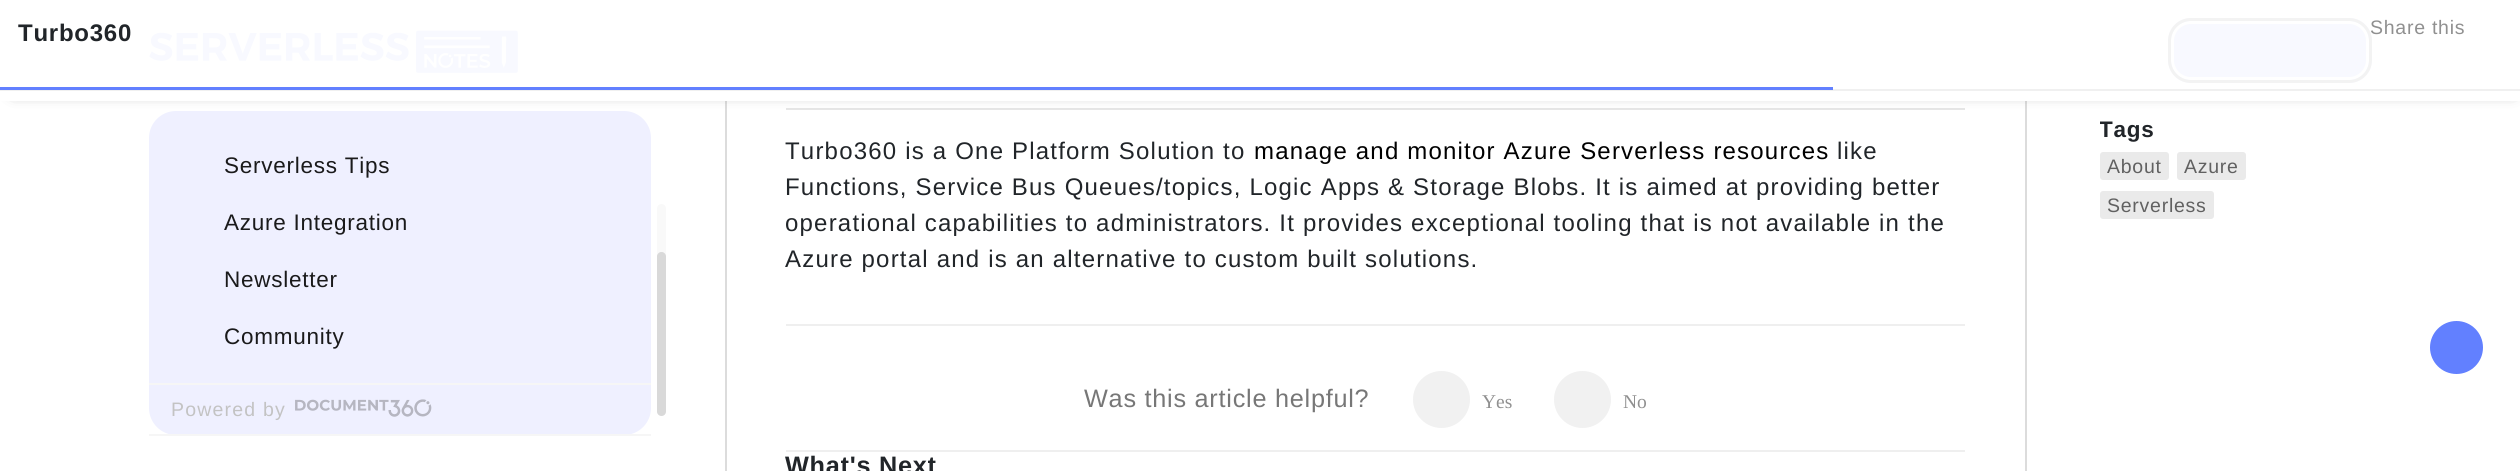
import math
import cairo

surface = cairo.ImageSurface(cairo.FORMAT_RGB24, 2520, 471)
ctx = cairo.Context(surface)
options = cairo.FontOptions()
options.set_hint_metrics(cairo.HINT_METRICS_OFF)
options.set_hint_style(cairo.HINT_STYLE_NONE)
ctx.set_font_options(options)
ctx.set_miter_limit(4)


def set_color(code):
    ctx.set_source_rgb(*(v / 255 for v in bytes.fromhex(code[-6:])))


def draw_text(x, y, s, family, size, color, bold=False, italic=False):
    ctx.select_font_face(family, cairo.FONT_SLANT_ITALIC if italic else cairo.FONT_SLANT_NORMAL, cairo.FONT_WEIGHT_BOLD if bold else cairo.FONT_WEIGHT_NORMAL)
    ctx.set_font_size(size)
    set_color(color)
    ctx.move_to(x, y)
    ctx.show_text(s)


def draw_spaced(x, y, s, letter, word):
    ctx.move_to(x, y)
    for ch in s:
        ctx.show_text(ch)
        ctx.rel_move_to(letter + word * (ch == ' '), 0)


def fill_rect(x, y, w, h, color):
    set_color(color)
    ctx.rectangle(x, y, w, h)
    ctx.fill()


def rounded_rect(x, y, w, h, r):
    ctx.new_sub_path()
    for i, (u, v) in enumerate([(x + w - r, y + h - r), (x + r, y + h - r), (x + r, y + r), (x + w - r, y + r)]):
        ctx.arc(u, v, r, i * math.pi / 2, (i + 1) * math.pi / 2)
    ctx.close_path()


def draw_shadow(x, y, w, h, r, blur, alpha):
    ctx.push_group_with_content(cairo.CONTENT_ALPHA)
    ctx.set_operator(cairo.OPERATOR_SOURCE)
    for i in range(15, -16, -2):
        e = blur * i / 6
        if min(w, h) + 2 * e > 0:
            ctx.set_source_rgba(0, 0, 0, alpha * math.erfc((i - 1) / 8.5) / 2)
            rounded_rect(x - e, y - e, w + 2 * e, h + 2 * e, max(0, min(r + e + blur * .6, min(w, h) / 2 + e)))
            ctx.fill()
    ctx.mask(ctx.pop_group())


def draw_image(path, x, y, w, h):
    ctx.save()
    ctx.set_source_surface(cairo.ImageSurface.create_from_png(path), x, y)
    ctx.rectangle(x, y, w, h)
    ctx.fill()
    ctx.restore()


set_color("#ffffff")
ctx.paint()
ctx.rectangle(726, -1, 1300, 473)
set_color("#dcdcdc")
ctx.stroke()
fill_rect(786, 108, 1179, 2, "#e6e6e6")
set_color("#eff0ff")
rounded_rect(149, 111, 502, 324, 27)
ctx.fill()
set_color("#2c2c2c")
draw_shadow(14, 11, 2499, 79, 0, 7.5, 1)
fill_rect(0, 0, 2520, 101, "#ffffff")
draw_image("assets/img1.png", 149, 30, 369, 43)
set_color("#6380ff")
rounded_rect(2168, 18, 204, 65, 23)
ctx.fill()
rounded_rect(2172.5, 22.5, 195, 56, 18.5)
set_color("#ffffff")
ctx.set_line_width(3)
ctx.stroke()
rounded_rect(2169.5, 19.5, 201, 62, 21.5)
set_color("#000000")
ctx.stroke()
ctx.set_source_rgba(1, 1, 1, 0.95)
ctx.rectangle(149, 18, 2223, 65)
ctx.fill()
fill_rect(0, 89, 2520, 2, "#f0f0f0")
ctx.select_font_face("Liberation Sans", cairo.FONT_SLANT_NORMAL, cairo.FONT_WEIGHT_BOLD)
ctx.set_font_size(24)
set_color("#212529")
draw_spaced(18, 41, "Turbo360", 0.75, 0)
ctx.select_font_face("Liberation Sans")
ctx.set_font_size(19.5)
set_color("#909090")
draw_spaced(2370, 34, "Share this", 0.75, 0)
fill_rect(0, 87, 1833, 3, "#6280ff")
ctx.set_font_size(24)
set_color("#212529")
draw_spaced(785, 159, "Turbo360 is a One Platform Solution to", 1.2, 0)
set_color("#000000")
draw_spaced(1254, 159, "manage and monitor Azure Serverless resources", 1.2, 0)
set_color("#212529")
draw_spaced(1837, 159, "like", 1.2, 0)
draw_spaced(785, 195, "Functions, Service Bus Queues/topics, Logic Apps & Storage Blobs. It is aimed at providing better", 1.2, 0)
draw_spaced(785, 231, "operational capabilities to administrators. It provides exceptional tooling that is not available in the", 1.2, 0)
draw_spaced(785, 267, "Azure portal and is an alternative to custom built solutions.", 1.2, 0)
fill_rect(786, 324, 1179, 2, "#efefef")
ctx.set_font_size(25.25)
set_color("#777777")
draw_spaced(1084, 407, "Was this article helpful?", 0.75, 0)
set_color("#f1f1f1")
ctx.new_path()
ctx.arc(1441.5, 399.5, 28.5, 0, 2 * math.pi)
ctx.fill()
draw_text(1482, 408, "Yes", "Liberation Serif", 19.5, "#909090")
set_color("#f1f1f1")
ctx.new_path()
ctx.arc(1582.5, 399.5, 28.5, 0, 2 * math.pi)
ctx.fill()
draw_text(1623, 408, "No", "Liberation Serif", 19.5, "#909090")
fill_rect(786, 450, 1179, 2, "#efefef")
ctx.select_font_face("Liberation Sans", cairo.FONT_SLANT_NORMAL, cairo.FONT_WEIGHT_BOLD)
ctx.set_font_size(25.25)
set_color("#212529")
draw_spaced(785, 474, "What's Next", 0.75, 0)
ctx.save()
ctx.rectangle(2100, 111, 272, 324)
ctx.clip()
ctx.set_font_size(22.5)
draw_spaced(2099, 137, "Tags", 0.75, 0)
ctx.restore()
set_color("#eaeaea")
rounded_rect(2100, 152, 69, 28, 3)
ctx.fill()
ctx.select_font_face("Liberation Sans")
ctx.set_font_size(19.5)
set_color("#616161")
draw_spaced(2107, 173, "About", 0.75, 0)
set_color("#eaeaea")
rounded_rect(2177, 152, 69, 28, 3)
ctx.fill()
set_color("#616161")
draw_spaced(2184, 173, "Azure", 0.75, 0)
set_color("#eaeaea")
rounded_rect(2100, 191, 114, 28, 3)
ctx.fill()
set_color("#616161")
draw_spaced(2107, 212, "Serverless", 0.75, 0)
ctx.set_font_size(22.5)
set_color("#1a1a1b")
draw_spaced(224, 173, "Serverless Tips", 0.75, 0)
draw_spaced(224, 230, "Azure Integration", 0.75, 0)
draw_spaced(224, 287, "Newsletter", 0.75, 0)
draw_spaced(224, 344, "Community", 0.75, 0)
set_color("#f9f9f9")
rounded_rect(657, 204, 9, 212, 4.5)
ctx.fill()
ctx.set_source_rgba(0.69, 0.69, 0.69, 0.44)
rounded_rect(657, 252, 9, 164, 4.5)
ctx.fill()
fill_rect(149, 383, 502, 2, "#f6f6f6")
fill_rect(149, 434, 502, 2, "#f6f6f6")
ctx.set_font_size(19.5)
set_color("#c3c3c3")
draw_spaced(171, 416, "Powered by", 1.2, 0)
draw_image("assets/img2.png", 295, 399, 137, 18)
set_color("#6280ff")
ctx.arc(2456.5, 347.5, 26.5, 0, 2 * math.pi)
ctx.fill()
surface.write_to_png("output.png")
